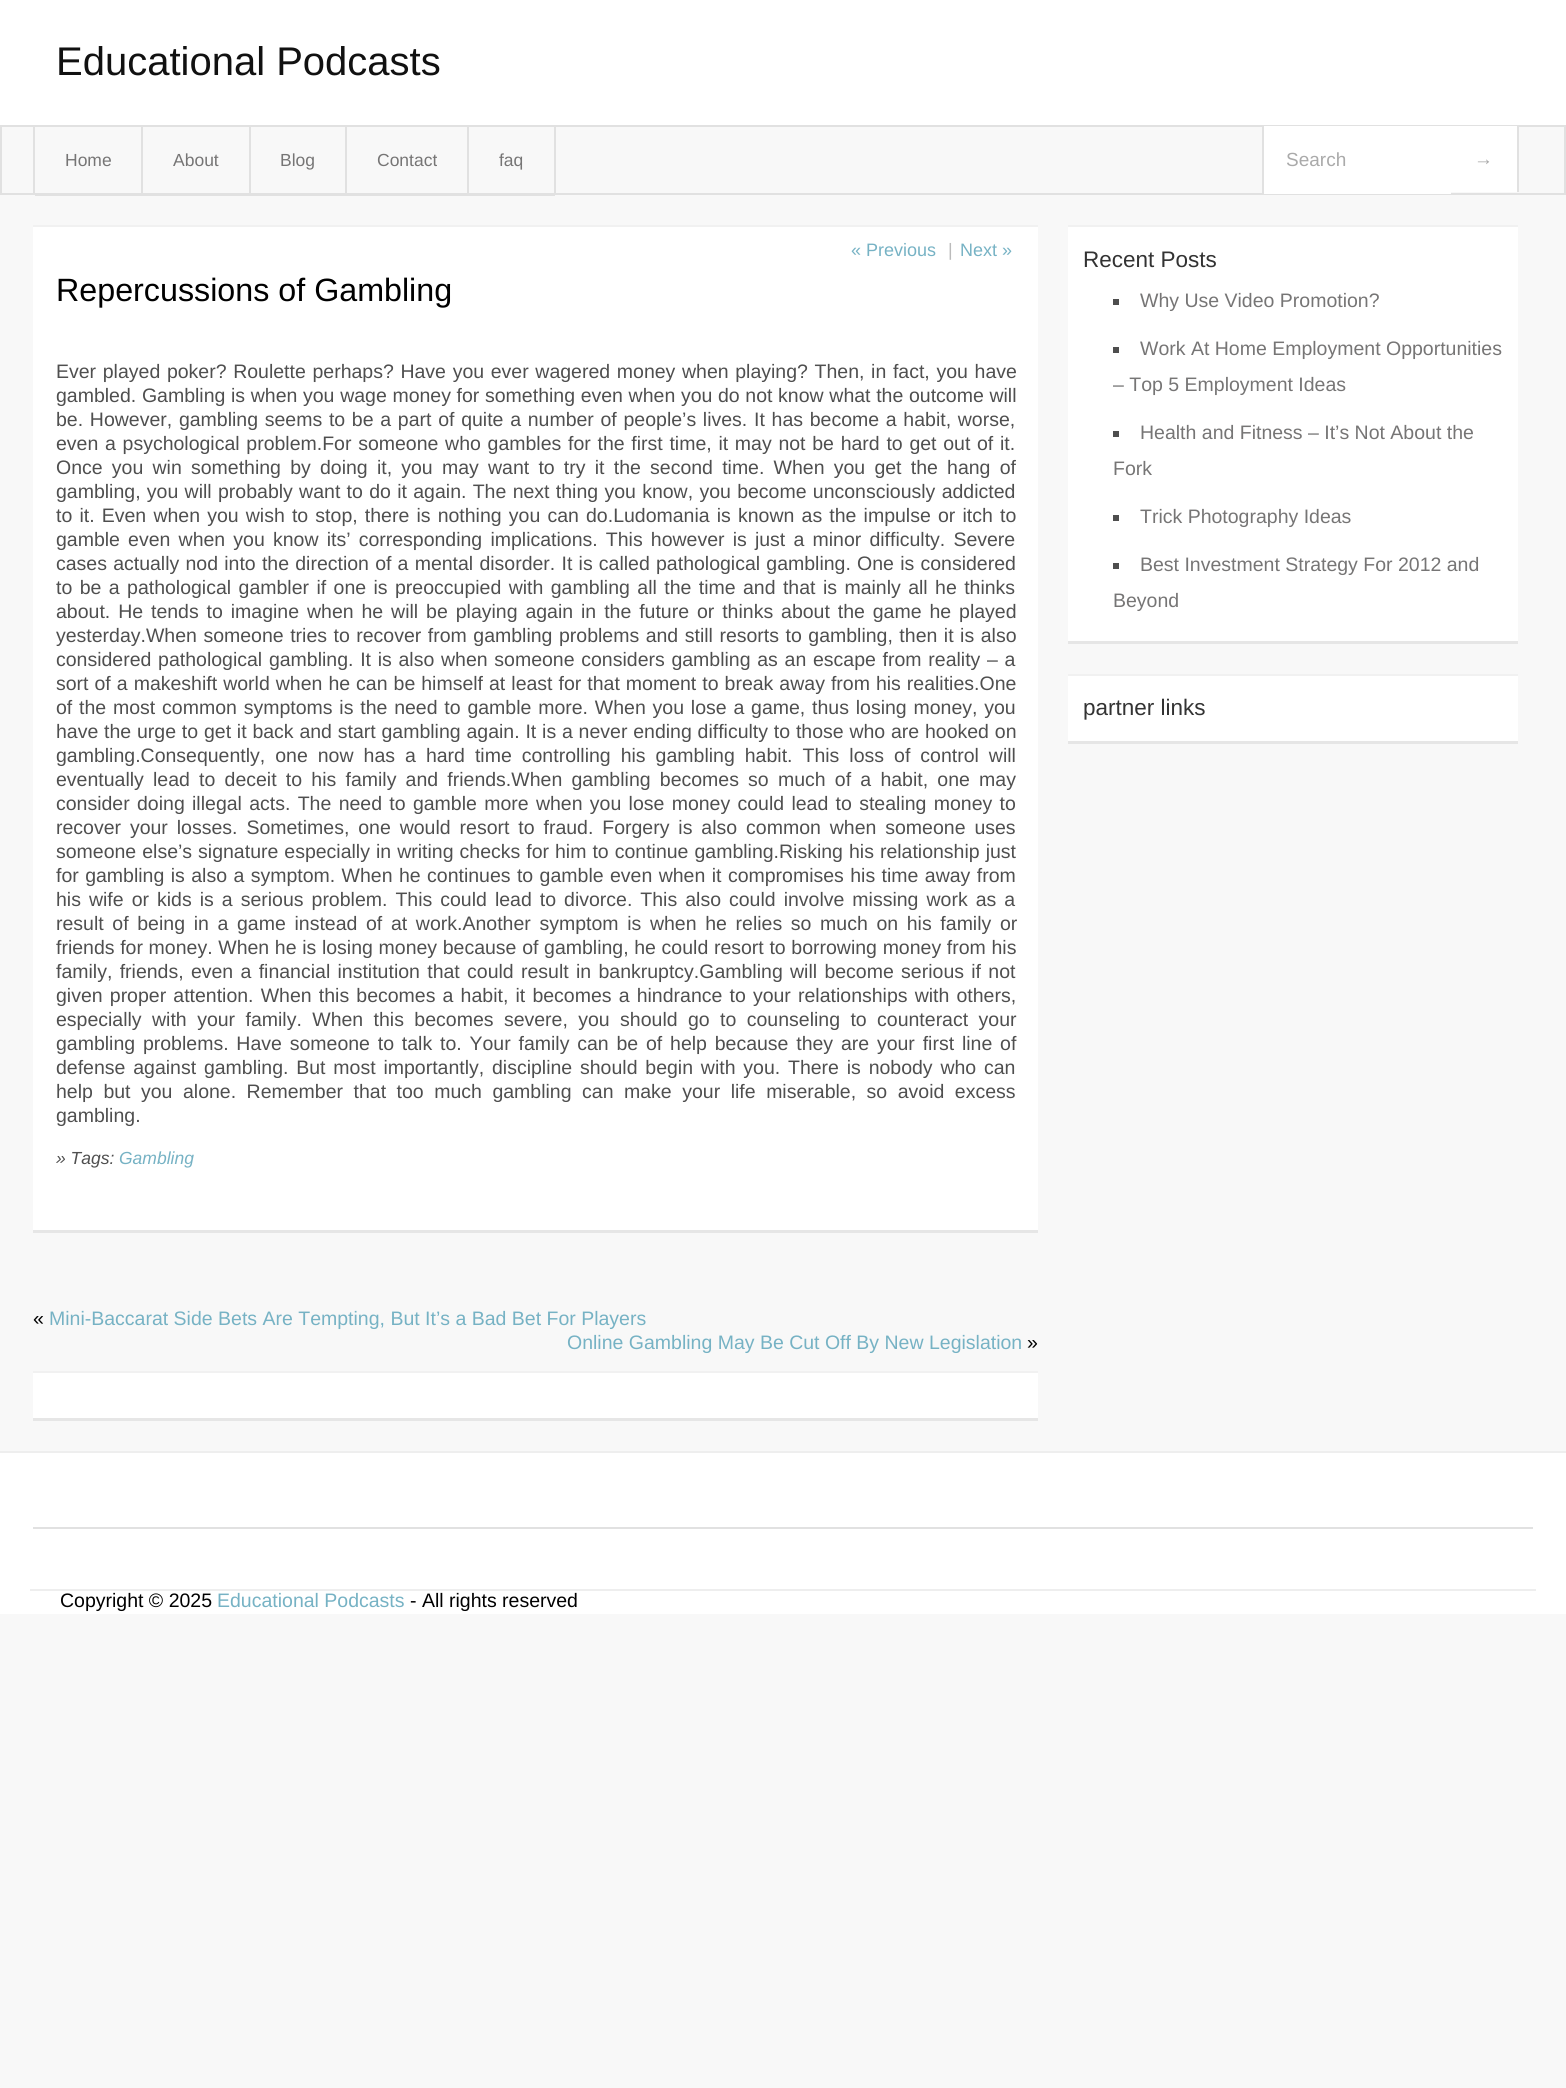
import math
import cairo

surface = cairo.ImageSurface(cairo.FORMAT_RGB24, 1566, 2088)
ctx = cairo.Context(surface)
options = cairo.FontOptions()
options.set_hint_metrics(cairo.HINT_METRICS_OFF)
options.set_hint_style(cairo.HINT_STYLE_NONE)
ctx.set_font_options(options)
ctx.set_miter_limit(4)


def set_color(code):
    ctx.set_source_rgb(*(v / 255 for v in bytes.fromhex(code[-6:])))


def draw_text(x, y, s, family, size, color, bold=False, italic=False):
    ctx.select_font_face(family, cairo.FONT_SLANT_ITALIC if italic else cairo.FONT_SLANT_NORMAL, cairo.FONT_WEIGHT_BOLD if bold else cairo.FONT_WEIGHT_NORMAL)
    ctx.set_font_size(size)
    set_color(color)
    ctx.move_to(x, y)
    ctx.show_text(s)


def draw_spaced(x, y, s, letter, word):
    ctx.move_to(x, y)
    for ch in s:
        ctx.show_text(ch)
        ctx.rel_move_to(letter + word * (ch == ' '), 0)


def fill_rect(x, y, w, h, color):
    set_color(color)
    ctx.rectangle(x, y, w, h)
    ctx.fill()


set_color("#f8f8f8")
ctx.paint()
fill_rect(0, 0, 1566, 125, "#ffffff")
draw_text(56, 75, "Educational Podcasts", "Liberation Sans", 40, "#111111")
ctx.rectangle(1, 126, 1564, 68)
set_color("#e1e1e1")
ctx.stroke()
fill_rect(33, 126, 2, 69, "#e1e1e1")
fill_rect(141, 126, 2, 69, "#e1e1e1")
fill_rect(35, 195, 520, 1, "#e1e1e1")
draw_text(65, 166, "Home", "Liberation Sans", 17.5, "#767575")
fill_rect(249, 126, 2, 69, "#e1e1e1")
draw_text(173, 166, "About", "Liberation Sans", 17.5, "#767575")
fill_rect(345, 126, 2, 69, "#e1e1e1")
draw_text(280, 166, "Blog", "Liberation Sans", 17.5, "#767575")
fill_rect(467, 126, 2, 69, "#e1e1e1")
draw_text(377, 166, "Contact", "Liberation Sans", 17.5, "#767575")
fill_rect(554, 126, 2, 69, "#e1e1e1")
draw_text(499, 166, "faq", "Liberation Sans", 17.5, "#767575")
fill_rect(1264, 126, 187, 68, "#ffffff")
fill_rect(1262, 126, 2, 68, "#e1e1e1")
draw_text(1286, 166, "Search", "Liberation Sans", 19, "#aaaaaa")
fill_rect(1451, 126, 66, 66, "#ffffff")
fill_rect(1517, 126, 2, 66, "#e1e1e1")
draw_text(1474, 165, "→", "Liberation Sans", 19, "#aaaaaa")
fill_rect(33, 227, 1005, 1003, "#ffffff")
draw_text(851, 256, "« Previous", "Liberation Sans", 18, "#76b2c4")
draw_text(948, 256, "|", "Liberation Sans", 18, "#bbbbbb")
draw_text(960, 256, "Next »", "Liberation Sans", 18, "#76b2c4")
fill_rect(33, 225, 1005, 2, "#f1f1f1")
fill_rect(33, 1230, 1005, 3, "#e6e6e6")
draw_text(56, 301, "Repercussions of Gambling", "Liberation Sans", 32.25, "#000000")
ctx.set_font_size(19.5)
set_color("#4f4f4f")
draw_spaced(56, 378, "Ever played poker? Roulette perhaps? Have you ever wagered money when playing? Then, in fact, you have", 0, 1.25)
draw_spaced(56, 402, "gambled. Gambling is when you wage money for something even when you do not know what the outcome will", 0, 0.25)
draw_spaced(56, 426, "be. However, gambling seems to be a part of quite a number of people’s lives. It has become a habit, worse,", 0, 1.3)
draw_spaced(56, 450, "even a psychological problem.For someone who gambles for the first time, it may not be hard to get out of it.", 0, 1.3)
draw_spaced(56, 474, "Once you win something by doing it, you may want to try it the second time. When you get the hang of", 0, 3.8)
draw_spaced(56, 498, "gambling, you will probably want to do it again. The next thing you know, you become unconsciously addicted", 0, 0.9)
draw_spaced(56, 522, "to it. Even when you wish to stop, there is nothing you can do.Ludomania is known as the impulse or itch to", 0, 1.75)
draw_spaced(56, 546, "gamble even when you know its’ corresponding implications. This however is just a minor difficulty. Severe", 0, 2.75)
draw_spaced(56, 570, "cases actually nod into the direction of a mental disorder. It is called pathological gambling. One is considered", 0, 0.8)
draw_spaced(56, 594, "to be a pathological gambler if one is preoccupied with gambling all the time and that is mainly all he thinks", 0, 2)
draw_spaced(56, 618, "about. He tends to imagine when he will be playing again in the future or thinks about the game he played", 0, 2.5)
draw_spaced(56, 642, "yesterday.When someone tries to recover from gambling problems and still resorts to gambling, then it is also", 0, 1.1)
draw_spaced(56, 666, "considered pathological gambling. It is also when someone considers gambling as an escape from reality – a", 0, 1.3)
draw_spaced(56, 690, "sort of a makeshift world when he can be himself at least for that moment to break away from his realities.One", 0, 0.6)
draw_spaced(56, 714, "of the most common symptoms is the need to gamble more. When you lose a game, thus losing money, you", 0, 1.4)
draw_spaced(56, 738, "have the urge to get it back and start gambling again. It is a never ending difficulty to those who are hooked on", 0, 0.4)
draw_spaced(56, 762, "gambling.Consequently, one now has a hard time controlling his gambling habit. This loss of control will", 0, 4.6)
draw_spaced(56, 786, "eventually lead to deceit to his family and friends.When gambling becomes so much of a habit, one may", 0, 3.8)
draw_spaced(56, 810, "consider doing illegal acts. The need to gamble more when you lose money could lead to stealing money to", 0, 1.9)
draw_spaced(56, 834, "recover your losses. Sometimes, one would resort to fraud. Forgery is also common when someone uses", 0, 3.5)
draw_spaced(56, 858, "someone else’s signature especially in writing checks for him to continue gambling.Risking his relationship just", 0, 0.6)
draw_spaced(56, 882, "for gambling is also a symptom. When he continues to gamble even when it compromises his time away from", 0, 1)
draw_spaced(56, 906, "his wife or kids is a serious problem. This could lead to divorce. This also could involve missing work as a", 0, 2.6)
draw_spaced(56, 930, "result of being in a game instead of at work.Another symptom is when he relies so much on his family or", 0, 3.25)
draw_spaced(56, 954, "friends for money. When he is losing money because of gambling, he could resort to borrowing money from his", 0, 0.25)
draw_spaced(56, 978, "family, friends, even a financial institution that could result in bankruptcy.Gambling will become serious if not", 0, 1.9)
draw_spaced(56, 1002, "given proper attention. When this becomes a habit, it becomes a hindrance to your relationships with others,", 0, 1.75)
draw_spaced(56, 1026, "especially with your family. When this becomes severe, you should go to counseling to counteract your", 0, 5)
draw_spaced(56, 1050, "gambling problems. Have someone to talk to. Your family can be of help because they are your first line of", 0, 2.4)
draw_spaced(56, 1074, "defense against gambling. But most importantly, discipline should begin with you. There is nobody who can", 0, 2.4)
draw_spaced(56, 1098, "help but you alone. Remember that too much gambling can make your life miserable, so avoid excess", 0, 5.1)
draw_text(56, 1122, "gambling.", "Liberation Sans", 19.5, "#4f4f4f")
draw_text(56, 1164, "» Tags:", "Liberation Sans", 17.5, "#4f4f4f", italic=True)
draw_text(119, 1164, "Gambling", "Liberation Sans", 17.5, "#76b2c4", italic=True)
draw_text(33, 1325, "«", "Liberation Sans", 19.5, "#000000")
draw_text(49, 1325, "Mini-Baccarat Side Bets Are Tempting, But It’s a Bad Bet For Players", "Liberation Sans", 19.5, "#76b2c4")
draw_text(567, 1349, "Online Gambling May Be Cut Off By New Legislation", "Liberation Sans", 19.5, "#76b2c4")
draw_text(1027, 1349, "»", "Liberation Sans", 19.5, "#000000")
fill_rect(33, 1373, 1005, 45, "#ffffff")
fill_rect(33, 1371, 1005, 2, "#f1f1f1")
fill_rect(33, 1418, 1005, 3, "#e6e6e6")
fill_rect(1068, 227, 450, 414, "#ffffff")
fill_rect(1068, 225, 450, 2, "#f1f1f1")
fill_rect(1068, 641, 450, 3, "#e6e6e6")
draw_text(1083, 267, "Recent Posts", "Liberation Sans", 22.5, "#333333")
fill_rect(1113, 299, 6, 6, "#4e4e4e")
draw_text(1140, 307, "Why Use Video Promotion?", "Liberation Sans", 19.5, "#767575")
fill_rect(1113, 347, 6, 6, "#4e4e4e")
draw_text(1140, 355, "Work At Home Employment Opportunities", "Liberation Sans", 19.5, "#767575")
draw_text(1113, 391, "– Top 5 Employment Ideas", "Liberation Sans", 19.5, "#767575")
fill_rect(1113, 431, 6, 6, "#4e4e4e")
draw_text(1140, 439, "Health and Fitness – It’s Not About the", "Liberation Sans", 19.5, "#767575")
draw_text(1113, 475, "Fork", "Liberation Sans", 19.5, "#767575")
fill_rect(1113, 515, 6, 6, "#4e4e4e")
draw_text(1140, 523, "Trick Photography Ideas", "Liberation Sans", 19.5, "#767575")
fill_rect(1113, 563, 6, 6, "#4e4e4e")
draw_text(1140, 571, "Best Investment Strategy For 2012 and", "Liberation Sans", 19.5, "#767575")
draw_text(1113, 607, "Beyond", "Liberation Sans", 19.5, "#767575")
fill_rect(1068, 676, 450, 65, "#ffffff")
fill_rect(1068, 674, 450, 2, "#f1f1f1")
fill_rect(1068, 741, 450, 3, "#e6e6e6")
draw_text(1083, 715, "partner links", "Liberation Sans", 22.5, "#333333")
fill_rect(0, 1453, 1566, 161, "#ffffff")
fill_rect(0, 1451, 1566, 2, "#eeeeee")
fill_rect(33, 1527, 1500, 2, "#e1e1e1")
fill_rect(30, 1589, 1506, 2, "#eeeeee")
draw_text(60, 1607, "Copyright © 2025", "Liberation Sans", 19.5, "#000000")
draw_text(217, 1607, "Educational Podcasts", "Liberation Sans", 19.5, "#76b2c4")
draw_text(410, 1607, "- All rights reserved", "Liberation Sans", 19.5, "#000000")
surface.write_to_png("output.png")
